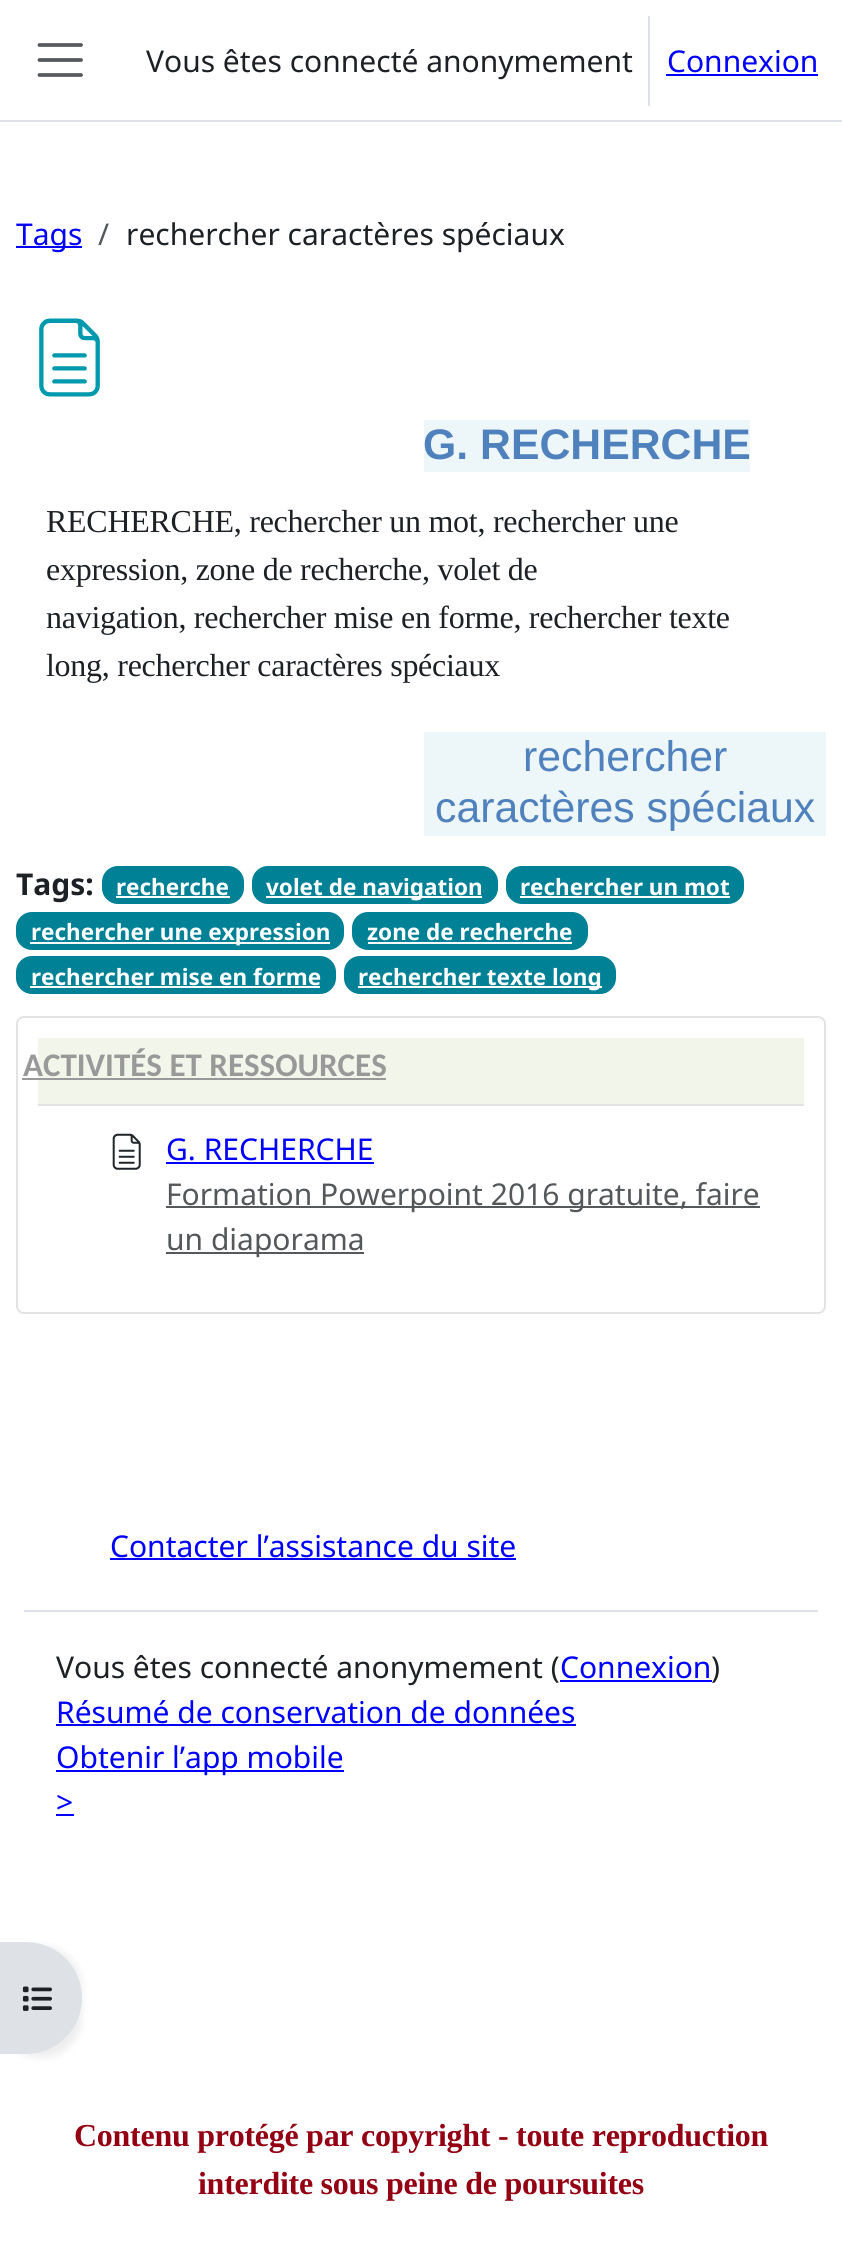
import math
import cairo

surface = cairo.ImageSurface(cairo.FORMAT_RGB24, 842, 2264)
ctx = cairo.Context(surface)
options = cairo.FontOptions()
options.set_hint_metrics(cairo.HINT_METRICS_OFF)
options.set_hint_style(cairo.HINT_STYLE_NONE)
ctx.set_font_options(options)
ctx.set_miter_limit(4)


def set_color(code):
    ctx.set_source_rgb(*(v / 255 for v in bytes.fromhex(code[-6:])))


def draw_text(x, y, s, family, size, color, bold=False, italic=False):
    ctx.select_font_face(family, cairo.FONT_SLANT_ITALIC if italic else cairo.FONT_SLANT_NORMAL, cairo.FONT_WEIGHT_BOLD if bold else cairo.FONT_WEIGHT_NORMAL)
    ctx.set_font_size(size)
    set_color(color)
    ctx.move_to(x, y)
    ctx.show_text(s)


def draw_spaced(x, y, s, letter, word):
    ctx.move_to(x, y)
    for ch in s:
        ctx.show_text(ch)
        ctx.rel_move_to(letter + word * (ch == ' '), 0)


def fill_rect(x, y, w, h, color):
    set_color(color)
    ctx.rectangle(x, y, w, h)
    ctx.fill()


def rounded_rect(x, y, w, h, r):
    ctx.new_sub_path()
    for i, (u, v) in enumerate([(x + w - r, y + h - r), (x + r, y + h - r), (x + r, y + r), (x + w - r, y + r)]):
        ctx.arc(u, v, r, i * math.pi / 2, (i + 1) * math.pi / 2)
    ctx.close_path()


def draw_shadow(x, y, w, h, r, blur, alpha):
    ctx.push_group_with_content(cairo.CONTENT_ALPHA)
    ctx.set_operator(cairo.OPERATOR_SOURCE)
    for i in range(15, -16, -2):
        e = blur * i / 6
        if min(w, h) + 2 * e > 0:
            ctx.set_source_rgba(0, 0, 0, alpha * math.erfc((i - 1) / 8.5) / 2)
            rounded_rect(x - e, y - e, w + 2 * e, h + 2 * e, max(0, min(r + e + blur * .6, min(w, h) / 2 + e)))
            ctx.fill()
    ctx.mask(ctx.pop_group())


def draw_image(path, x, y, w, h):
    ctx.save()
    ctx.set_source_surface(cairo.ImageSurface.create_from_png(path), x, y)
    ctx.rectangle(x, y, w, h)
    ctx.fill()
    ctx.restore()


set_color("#ffffff")
ctx.paint()
fill_rect(0, 120, 842, 2, "#dee2e6")
ctx.new_path()
ctx.move_to(39.5, 45)
ctx.line_to(81, 45)
ctx.move_to(39.5, 60)
ctx.line_to(81, 60)
ctx.move_to(39.5, 75)
ctx.line_to(81, 75)
set_color("#56595c")
ctx.set_line_width(3.8)
ctx.set_line_cap(cairo.LINE_CAP_ROUND)
ctx.stroke()
draw_text(146, 72, "Vous êtes connecté anonymement", "Noto Sans", 30, "#1d2125")
fill_rect(648, 16, 2, 90, "#dee2e6")
draw_text(667, 72, "Connexion", "Noto Sans", 30, "#0000ff")
fill_rect(666, 74, 152, 2, "#0000ff")
fill_rect(16, 246, 66, 2, "#0000ff")
draw_text(16, 245, "Tags", "Noto Sans", 30, "#0000ff")
draw_text(98, 245, "/", "Noto Sans", 30, "#55585b")
draw_text(126, 245, "rechercher caractères spéciaux", "Noto Sans", 30, "#1d2125")
draw_image("assets/img1.png", 39, 318, 61, 79)
fill_rect(424, 420, 326, 52, "#edf6f9")
draw_text(423, 459, "G. RECHERCHE", "Liberation Sans", 42.75, "#4f81bd", bold=True)
ctx.select_font_face("Liberation Serif")
ctx.set_font_size(32)
set_color("#1d2125")
draw_spaced(46, 532, "RECHERCHE, rechercher un mot, rechercher une", -0.27, 0)
draw_spaced(46, 580, "expression, zone de recherche, volet de", -0.27, 0)
draw_spaced(46, 628, "navigation, rechercher mise en forme, rechercher texte", -0.27, 0)
draw_spaced(46, 676, "long, rechercher caractères spéciaux", -0.27, 0)
fill_rect(424, 732, 402, 104, "#edf6f9")
draw_text(523, 771, "rechercher", "Liberation Sans", 42.75, "#4f81bd")
draw_text(435, 822, "caractères spéciaux", "Liberation Sans", 42.75, "#4f81bd")
draw_text(16, 895, "Tags:", "Noto Sans", 30, "#1d2125", bold=True)
set_color("#008196")
rounded_rect(102, 866, 142, 38, 16)
ctx.fill()
draw_text(116, 895, "recherche", "Noto Sans", 22.5, "#ffffff", bold=True)
fill_rect(116, 896, 114, 2, "#ffffff")
set_color("#008196")
rounded_rect(252, 866, 246, 38, 16)
ctx.fill()
fill_rect(266, 896, 216, 2, "#ffffff")
draw_text(266, 895, "volet de navigation", "Noto Sans", 22.5, "#ffffff", bold=True)
set_color("#008196")
rounded_rect(506, 866, 238, 38, 16)
ctx.fill()
draw_text(520, 895, "rechercher un mot", "Noto Sans", 22.5, "#ffffff", bold=True)
fill_rect(520, 896, 210, 2, "#ffffff")
set_color("#008196")
rounded_rect(16, 912, 328, 38, 16)
ctx.fill()
fill_rect(30, 942, 300, 2, "#ffffff")
draw_text(31, 940, "rechercher une expression", "Noto Sans", 22.5, "#ffffff", bold=True)
set_color("#008196")
rounded_rect(352, 912, 236, 38, 16)
ctx.fill()
draw_text(367, 940, "zone de recherche", "Noto Sans", 22.5, "#ffffff", bold=True)
fill_rect(368, 942, 204, 2, "#ffffff")
set_color("#008196")
rounded_rect(16, 956, 320, 38, 16)
ctx.fill()
draw_text(31, 985, "rechercher mise en forme", "Noto Sans", 22.5, "#ffffff", bold=True)
fill_rect(30, 986, 290, 2, "#ffffff")
set_color("#008196")
rounded_rect(344, 956, 272, 38, 16)
ctx.fill()
fill_rect(358, 986, 244, 2, "#ffffff")
draw_text(358, 985, "rechercher texte long", "Noto Sans", 22.5, "#ffffff", bold=True)
rounded_rect(17, 1017, 808, 296, 7)
set_color("#e3e3e3")
ctx.set_line_width(2)
ctx.set_line_cap(cairo.LINE_CAP_BUTT)
ctx.stroke()
fill_rect(38, 1038, 766, 66, "#f2f6ea")
fill_rect(38, 1104, 766, 2, "#e3e3e3")
draw_text(23, 1076, "ACTIVITÉS ET RESSOURCES", "Carlito", 33, "#999999", bold=True)
fill_rect(22, 1078, 364, 2, "#999999")
draw_image("assets/img2.png", 112, 1133, 29, 37)
draw_text(166, 1160, "G. RECHERCHE", "Noto Sans", 30, "#0000ff")
fill_rect(166, 1162, 208, 2, "#0000ff")
fill_rect(166, 1206, 594, 2, "#56595c")
draw_text(166, 1205, "Formation Powerpoint 2016 gratuite, faire", "Noto Sans", 30, "#55585b")
fill_rect(166, 1252, 198, 2, "#56595c")
draw_text(166, 1250, "un diaporama", "Noto Sans", 30, "#55585b")
set_color("#000000")
draw_shadow(0, 1946, 82, 112, 56, 4, 0.07)
set_color("#dee2e6")
ctx.new_path()
ctx.move_to(0, 1942)
ctx.line_to(26, 1942)
ctx.curve_to(57, 1942, 82, 1967, 82, 1998)
ctx.curve_to(82, 2029, 57, 2054, 26, 2054)
ctx.line_to(0, 2054)
ctx.close_path()
ctx.fill()
draw_image("assets/img3.png", 22, 1986, 30, 25)
fill_rect(24, 1610, 794, 2, "#dee2e6")
draw_text(110, 1557, "Contacter l’assistance du site", "Noto Sans", 30, "#0000ff")
fill_rect(110, 1558, 406, 2, "#0000ff")
draw_text(56, 1678, "Vous êtes connecté anonymement (", "Noto Sans", 30, "#1d2125")
draw_text(560, 1678, "Connexion", "Noto Sans", 30, "#0000ff")
fill_rect(560, 1680, 152, 2, "#0000ff")
draw_text(711, 1678, ")", "Noto Sans", 30, "#1d2125")
draw_text(56, 1723, "Résumé de conservation de données", "Noto Sans", 30, "#0000ff")
fill_rect(56, 1724, 520, 2, "#0000ff")
fill_rect(56, 1770, 288, 2, "#0000ff")
draw_text(56, 1768, "Obtenir l’app mobile", "Noto Sans", 30, "#0000ff")
draw_text(56, 1813, ">", "Noto Sans", 30, "#0000ff")
fill_rect(56, 1814, 18, 2, "#0000ff")
ctx.select_font_face("Liberation Serif", cairo.FONT_SLANT_NORMAL, cairo.FONT_WEIGHT_BOLD)
ctx.set_font_size(32)
set_color("#940013")
draw_spaced(74, 2146, "Contenu protégé par copyright - toute reproduction", -0.27, 0)
draw_spaced(198, 2194, "interdite sous peine de poursuites", -0.27, 0)
surface.write_to_png("output.png")
